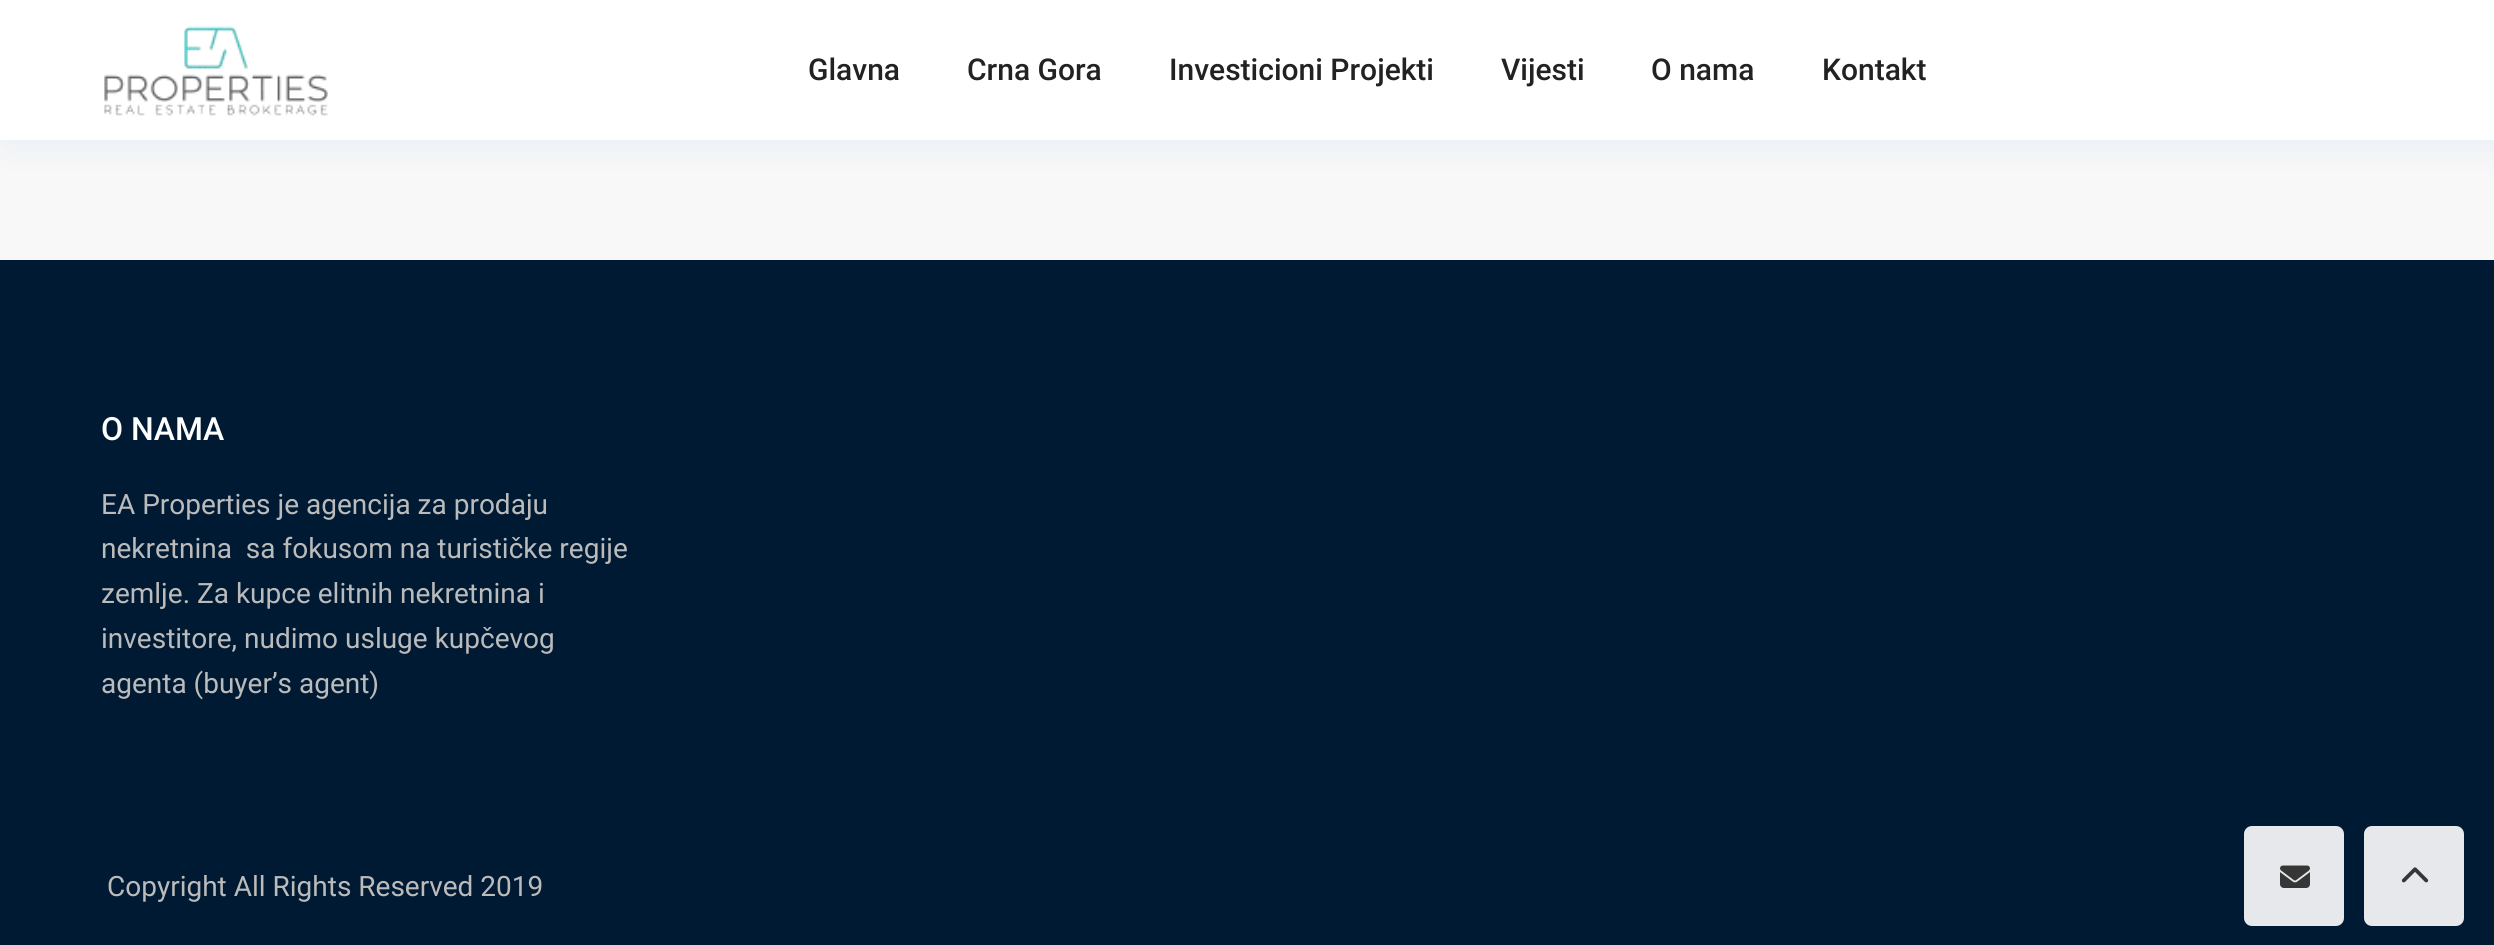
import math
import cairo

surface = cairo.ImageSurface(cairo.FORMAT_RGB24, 2494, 945)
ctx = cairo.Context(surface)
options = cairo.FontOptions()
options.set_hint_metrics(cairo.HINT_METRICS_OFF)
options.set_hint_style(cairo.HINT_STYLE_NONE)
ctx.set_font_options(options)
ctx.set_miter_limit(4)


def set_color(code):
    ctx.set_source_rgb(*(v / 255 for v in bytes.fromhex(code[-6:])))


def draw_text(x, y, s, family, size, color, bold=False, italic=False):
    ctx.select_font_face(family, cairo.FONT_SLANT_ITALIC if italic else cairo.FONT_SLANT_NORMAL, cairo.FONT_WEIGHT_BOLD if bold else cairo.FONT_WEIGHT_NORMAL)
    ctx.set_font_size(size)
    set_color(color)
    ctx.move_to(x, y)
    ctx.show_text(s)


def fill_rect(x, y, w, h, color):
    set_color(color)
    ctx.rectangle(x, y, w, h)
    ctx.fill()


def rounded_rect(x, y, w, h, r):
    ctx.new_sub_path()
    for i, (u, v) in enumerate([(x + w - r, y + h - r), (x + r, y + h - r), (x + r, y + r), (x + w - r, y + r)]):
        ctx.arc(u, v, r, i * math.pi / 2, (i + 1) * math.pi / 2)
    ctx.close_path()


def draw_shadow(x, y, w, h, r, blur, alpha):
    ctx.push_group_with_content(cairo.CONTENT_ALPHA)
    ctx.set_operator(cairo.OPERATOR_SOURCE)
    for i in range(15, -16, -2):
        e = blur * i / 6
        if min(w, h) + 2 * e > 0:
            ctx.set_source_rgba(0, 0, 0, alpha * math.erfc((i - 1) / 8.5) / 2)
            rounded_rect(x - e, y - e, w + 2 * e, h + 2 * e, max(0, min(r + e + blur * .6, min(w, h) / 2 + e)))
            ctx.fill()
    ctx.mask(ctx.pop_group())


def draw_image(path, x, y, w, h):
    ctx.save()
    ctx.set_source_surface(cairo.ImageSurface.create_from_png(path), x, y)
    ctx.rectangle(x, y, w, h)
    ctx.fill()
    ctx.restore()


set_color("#f8f8f8")
ctx.paint()
set_color("#006ee1")
draw_shadow(6, 2, 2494, 140, 0, 20, 0.08)
fill_rect(0, 0, 2494, 140, "#ffffff")
draw_image("assets/img1.png", 104, 26, 224, 90)
draw_text(808, 80, "Glavna", "Roboto Medium", 30, "#222222")
draw_text(967, 80, "Crna Gora", "Roboto Medium", 30, "#222222")
draw_text(1169, 80, "Investicioni Projekti", "Roboto Medium", 30, "#222222")
draw_text(1501, 80, "Vijesti", "Roboto Medium", 30, "#222222")
draw_text(1651, 80, "O nama", "Roboto Medium", 30, "#222222")
draw_text(1822, 80, "Kontakt", "Roboto Medium", 30, "#222222")
fill_rect(0, 260, 2494, 685, "#001a33")
draw_text(101, 440, "O NAMA", "Roboto Medium", 32, "#ffffff")
draw_text(101, 514, "EA Properties je agencija za prodaju", "Roboto", 28, "#bbbbbb")
draw_text(101, 558, "nekretnina  sa fokusom na turističke regije", "Roboto", 28, "#bbbbbb")
draw_text(101, 603, "zemlje. Za kupce elitnih nekretnina i", "Roboto", 28, "#bbbbbb")
draw_text(101, 648, "investitore, nudimo usluge kupčevog", "Roboto", 28, "#bbbbbb")
draw_text(101, 693, "agenta (buyer’s agent)", "Roboto", 28, "#bbbbbb")
draw_text(107, 896, "Copyright All Rights Reserved 2019", "Roboto", 28, "#bbbbbb")
set_color("#e6e8eb")
rounded_rect(2244, 826, 100, 100, 8)
ctx.fill()
draw_image("assets/img2.png", 2280, 865, 30, 23)
rounded_rect(2364, 826, 100, 100, 8)
ctx.fill()
draw_image("assets/img3.png", 2401, 867, 28, 16)
surface.write_to_png("output.png")
